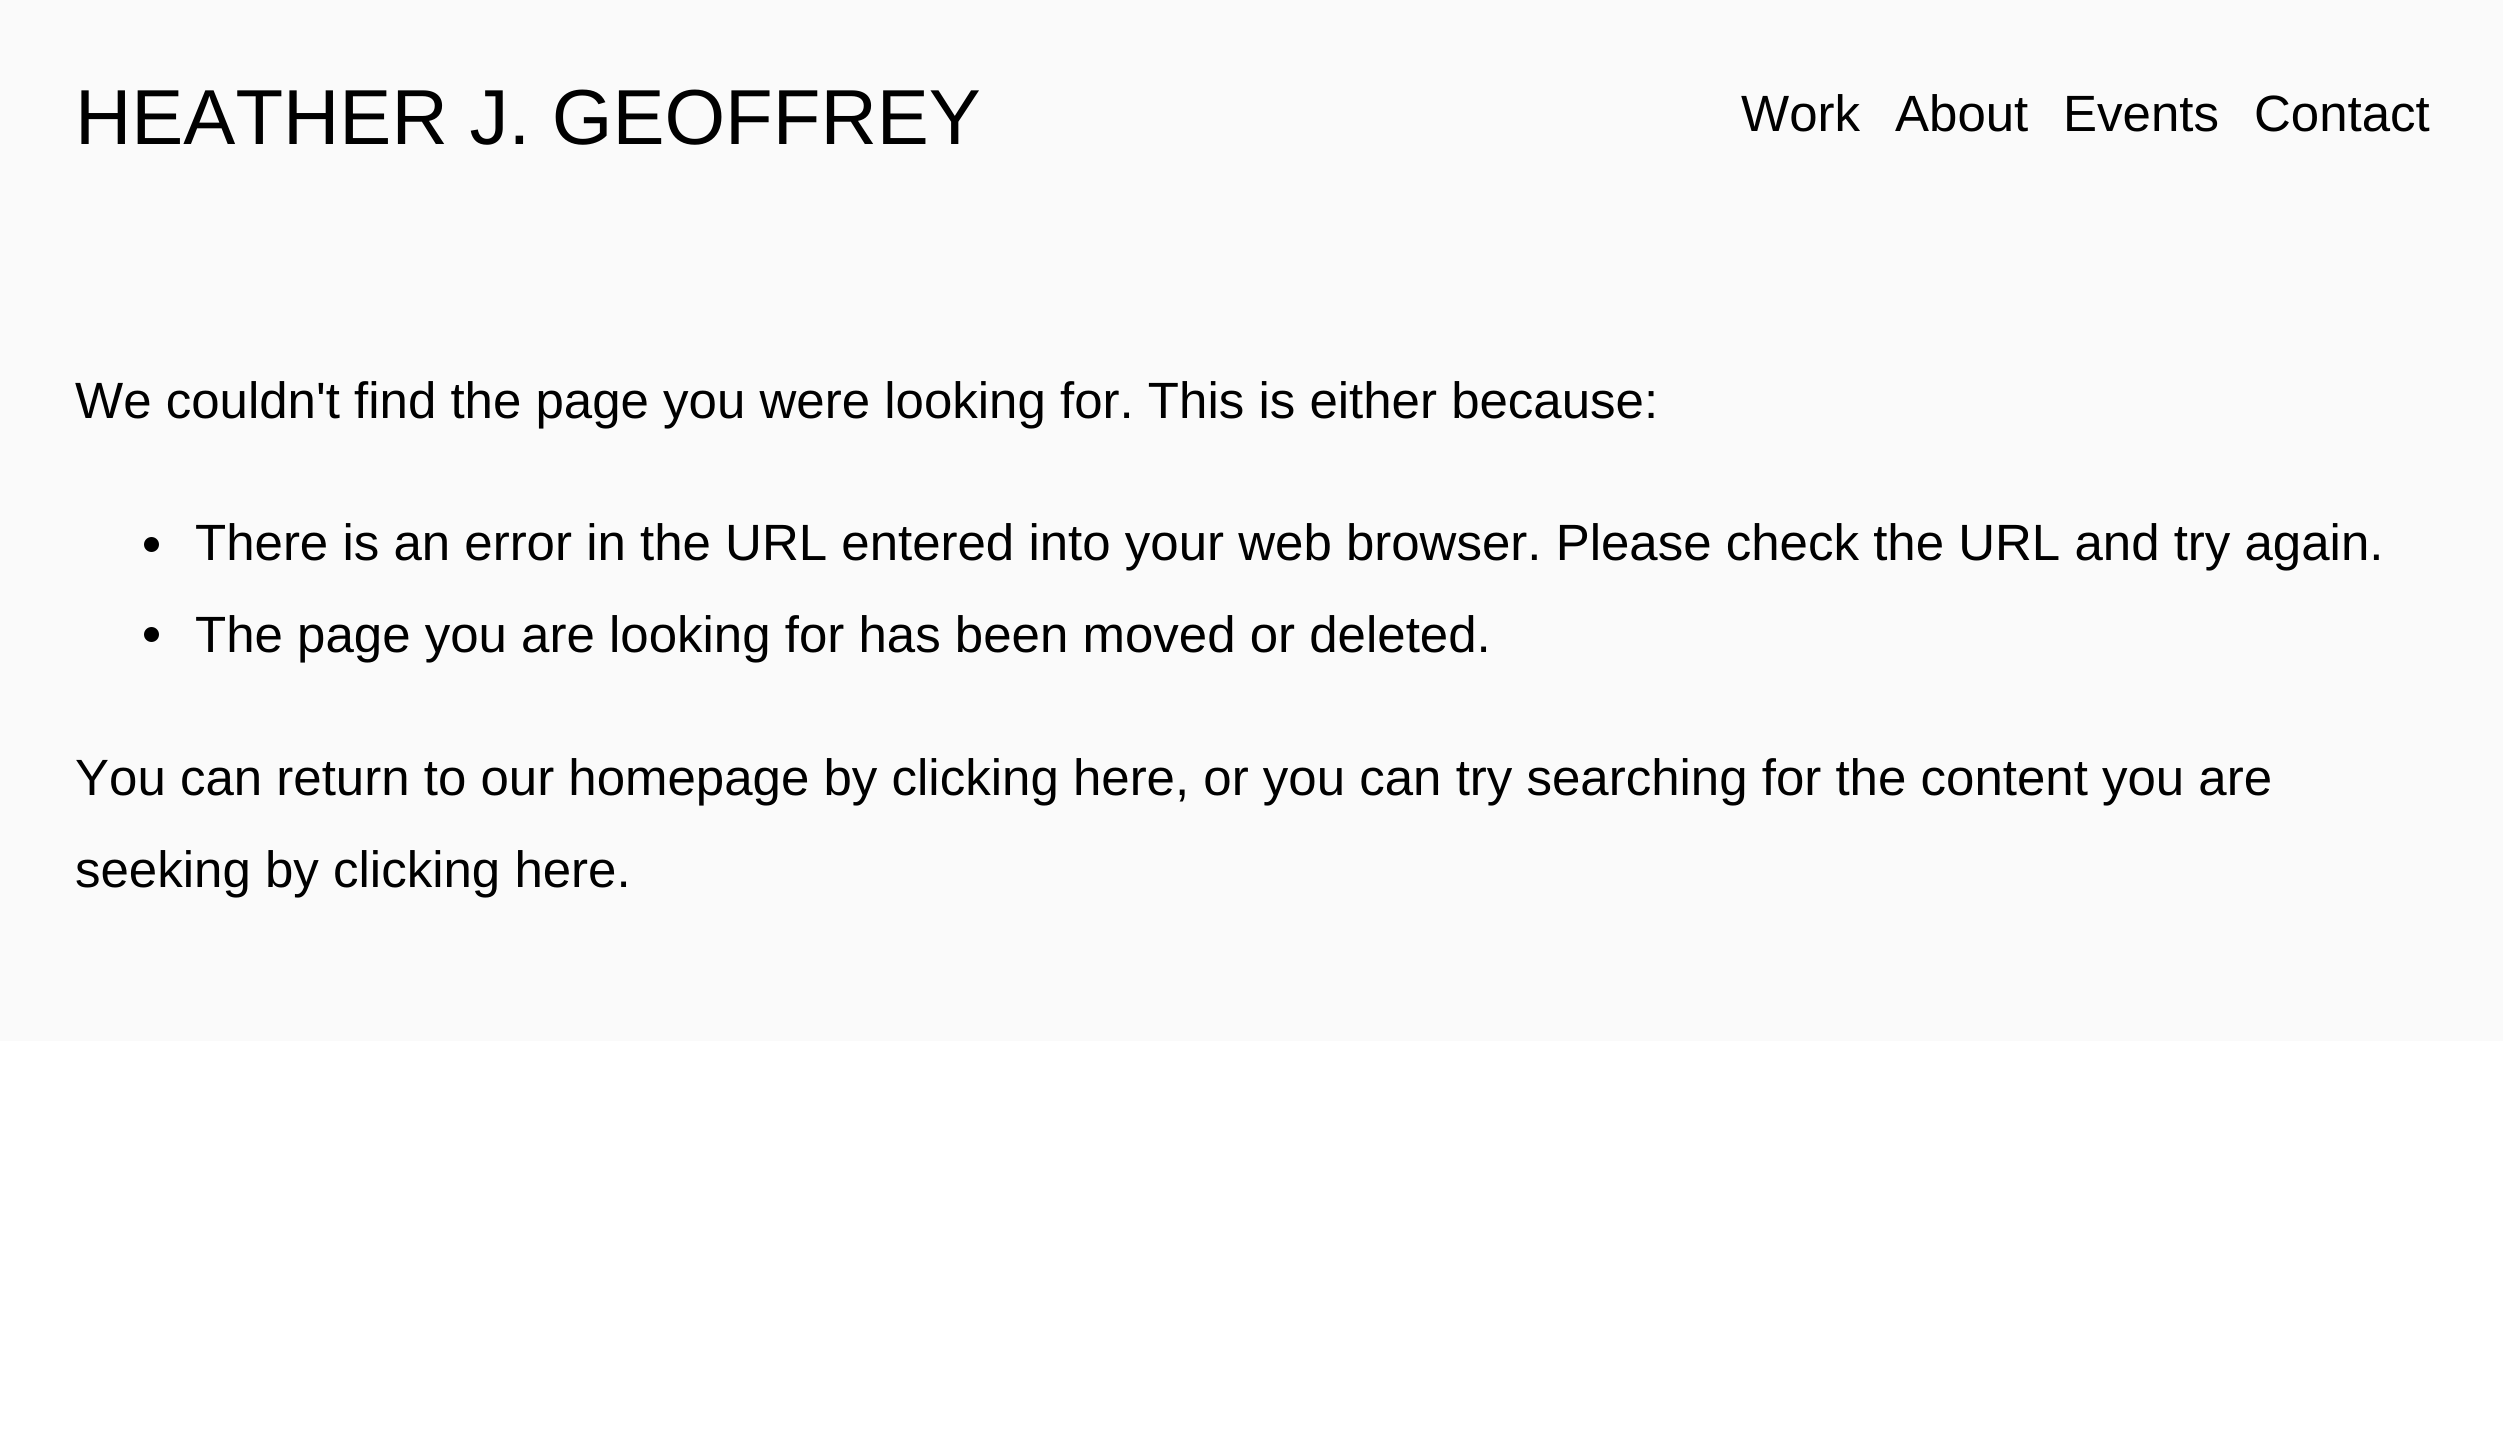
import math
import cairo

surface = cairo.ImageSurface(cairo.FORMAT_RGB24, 2503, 1456)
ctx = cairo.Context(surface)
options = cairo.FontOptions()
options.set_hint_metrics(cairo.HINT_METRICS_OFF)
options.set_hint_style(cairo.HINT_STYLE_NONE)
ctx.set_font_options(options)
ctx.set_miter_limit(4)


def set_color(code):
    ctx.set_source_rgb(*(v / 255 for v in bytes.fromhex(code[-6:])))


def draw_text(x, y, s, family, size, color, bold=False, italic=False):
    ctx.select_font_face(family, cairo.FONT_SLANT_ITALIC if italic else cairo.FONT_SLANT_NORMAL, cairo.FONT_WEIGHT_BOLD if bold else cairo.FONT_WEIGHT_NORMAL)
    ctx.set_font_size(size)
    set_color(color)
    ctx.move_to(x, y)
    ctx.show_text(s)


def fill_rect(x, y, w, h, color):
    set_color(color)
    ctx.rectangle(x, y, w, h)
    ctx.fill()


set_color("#fafafa")
ctx.paint()
draw_text(75, 144, "HEATHER J. GEOFFREY", "Liberation Sans", 78, "#000000")
draw_text(1741, 131, "Work", "Liberation Sans", 51, "#000000")
draw_text(1895, 131, "About", "Liberation Sans", 51, "#000000")
draw_text(2063, 131, "Events", "Liberation Sans", 51, "#000000")
draw_text(2254, 131, "Contact", "Liberation Sans", 51, "#000000")
draw_text(75, 418, "We couldn't find the page you were looking for. This is either because:", "Liberation Sans", 51, "#000000")
ctx.new_path()
ctx.arc(151.5, 544.5, 7.5, 0, 2 * math.pi)
ctx.fill()
draw_text(195, 560, "There is an error in the URL entered into your web browser. Please check the URL and try again.", "Liberation Sans", 51, "#000000")
ctx.new_path()
ctx.arc(151.5, 634.5, 7.5, 0, 2 * math.pi)
ctx.fill()
draw_text(195, 652, "The page you are looking for has been moved or deleted.", "Liberation Sans", 51, "#000000")
draw_text(75, 795, "You can return to our homepage by clicking here, or you can try searching for the content you are", "Liberation Sans", 51, "#000000")
draw_text(75, 887, "seeking by clicking here.", "Liberation Sans", 51, "#000000")
fill_rect(0, 1041, 2503, 415, "#ffffff")
surface.write_to_png("output.png")
